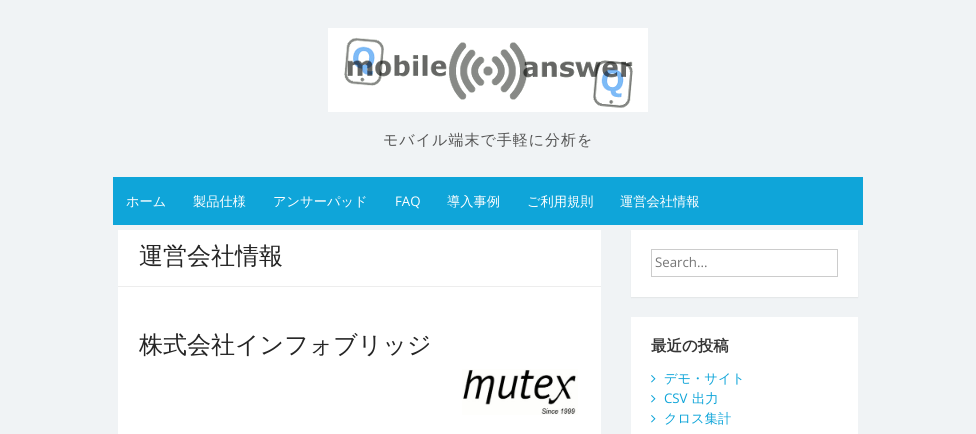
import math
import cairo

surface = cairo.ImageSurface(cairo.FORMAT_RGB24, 976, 434)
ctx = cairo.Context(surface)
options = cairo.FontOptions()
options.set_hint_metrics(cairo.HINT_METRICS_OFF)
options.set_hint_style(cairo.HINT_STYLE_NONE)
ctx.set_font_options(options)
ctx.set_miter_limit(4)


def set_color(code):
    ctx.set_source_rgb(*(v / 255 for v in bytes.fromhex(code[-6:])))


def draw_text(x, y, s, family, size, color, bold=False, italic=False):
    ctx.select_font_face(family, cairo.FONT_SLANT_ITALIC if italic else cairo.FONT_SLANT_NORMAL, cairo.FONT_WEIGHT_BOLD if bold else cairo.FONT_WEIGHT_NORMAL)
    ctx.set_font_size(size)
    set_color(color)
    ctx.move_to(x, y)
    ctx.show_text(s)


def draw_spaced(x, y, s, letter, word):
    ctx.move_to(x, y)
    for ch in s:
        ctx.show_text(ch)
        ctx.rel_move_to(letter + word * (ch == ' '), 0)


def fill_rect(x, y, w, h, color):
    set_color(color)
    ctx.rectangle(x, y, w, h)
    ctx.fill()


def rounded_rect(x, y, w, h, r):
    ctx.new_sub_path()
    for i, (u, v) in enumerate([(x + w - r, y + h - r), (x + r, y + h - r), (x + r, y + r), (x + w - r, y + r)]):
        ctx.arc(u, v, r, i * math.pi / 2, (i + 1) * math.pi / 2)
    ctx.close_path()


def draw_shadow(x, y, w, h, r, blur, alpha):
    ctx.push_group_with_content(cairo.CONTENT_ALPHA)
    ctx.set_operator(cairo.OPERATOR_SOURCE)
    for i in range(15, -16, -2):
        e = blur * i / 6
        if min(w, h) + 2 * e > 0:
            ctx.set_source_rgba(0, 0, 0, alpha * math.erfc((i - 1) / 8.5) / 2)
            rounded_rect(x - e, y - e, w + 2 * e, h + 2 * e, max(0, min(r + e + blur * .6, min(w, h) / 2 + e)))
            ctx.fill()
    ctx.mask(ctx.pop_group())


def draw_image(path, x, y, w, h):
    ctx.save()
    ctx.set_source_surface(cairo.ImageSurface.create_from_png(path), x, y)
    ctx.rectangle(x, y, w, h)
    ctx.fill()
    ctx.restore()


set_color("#f0f3f5")
ctx.paint()
draw_image("assets/img1.png", 328, 28, 320, 84)
ctx.select_font_face("WenQuanYi Zen Hei Medium")
ctx.set_font_size(15)
set_color("#555555")
draw_spaced(383, 145, "モバイル端末で手軽に分析を", 1, 0)
fill_rect(113, 177, 750, 48, "#0fa5d9")
draw_text(126, 206, "ホーム", "WenQuanYi Zen Hei Medium", 13.25, "#ffffff")
draw_text(193, 206, "製品仕様", "WenQuanYi Zen Hei Medium", 13.25, "#ffffff")
draw_text(273, 206, "アンサーパッド", "WenQuanYi Zen Hei Medium", 13.25, "#ffffff")
draw_text(395, 206, "FAQ", "Open Sans", 13.25, "#ffffff")
draw_text(447, 206, "導入事例", "WenQuanYi Zen Hei Medium", 13.25, "#ffffff")
draw_text(527, 206, "ご利用規則", "WenQuanYi Zen Hei Medium", 13.25, "#ffffff")
draw_text(620, 206, "運営会社情報", "WenQuanYi Zen Hei Medium", 13.25, "#ffffff")
fill_rect(118, 230, 483, 204, "#ffffff")
fill_rect(118, 286, 483, 1, "#ededed")
draw_text(139, 264, "運営会社情報", "WenQuanYi Zen Hei Medium", 24, "#252525")
draw_text(139, 353, "株式会社インフォブリッジ", "WenQuanYi Zen Hei Medium", 24, "#252525")
draw_image("assets/img2.png", 462, 369, 116, 46)
set_color("#000000")
draw_shadow(631, 231, 227, 67, 0, 0.5, 0.06)
fill_rect(631, 230, 227, 67, "#ffffff")
ctx.rectangle(651.5, 249.5, 186, 27)
set_color("#cccccc")
ctx.set_line_width(1)
ctx.stroke()
draw_text(655, 267, "Search...", "Open Sans", 13.25, "#757575")
fill_rect(631, 317, 227, 117, "#ffffff")
draw_text(651, 351, "最近の投稿", "WenQuanYi Zen Hei", 15.5, "#353535", bold=True)
draw_image("assets/img3.png", 651, 375, 5, 8)
draw_text(664, 383, "デモ・サイト", "WenQuanYi Zen Hei Medium", 13.25, "#0fa5d9")
draw_image("assets/img3.png", 651, 395, 5, 8)
draw_text(664, 403, "CSV", "Open Sans", 13.25, "#0fa5d9")
draw_text(692, 403, "出力", "WenQuanYi Zen Hei Medium", 13.25, "#0fa5d9")
draw_image("assets/img3.png", 651, 415, 5, 8)
draw_text(664, 423, "クロス集計", "WenQuanYi Zen Hei Medium", 13.25, "#0fa5d9")
surface.write_to_png("output.png")
